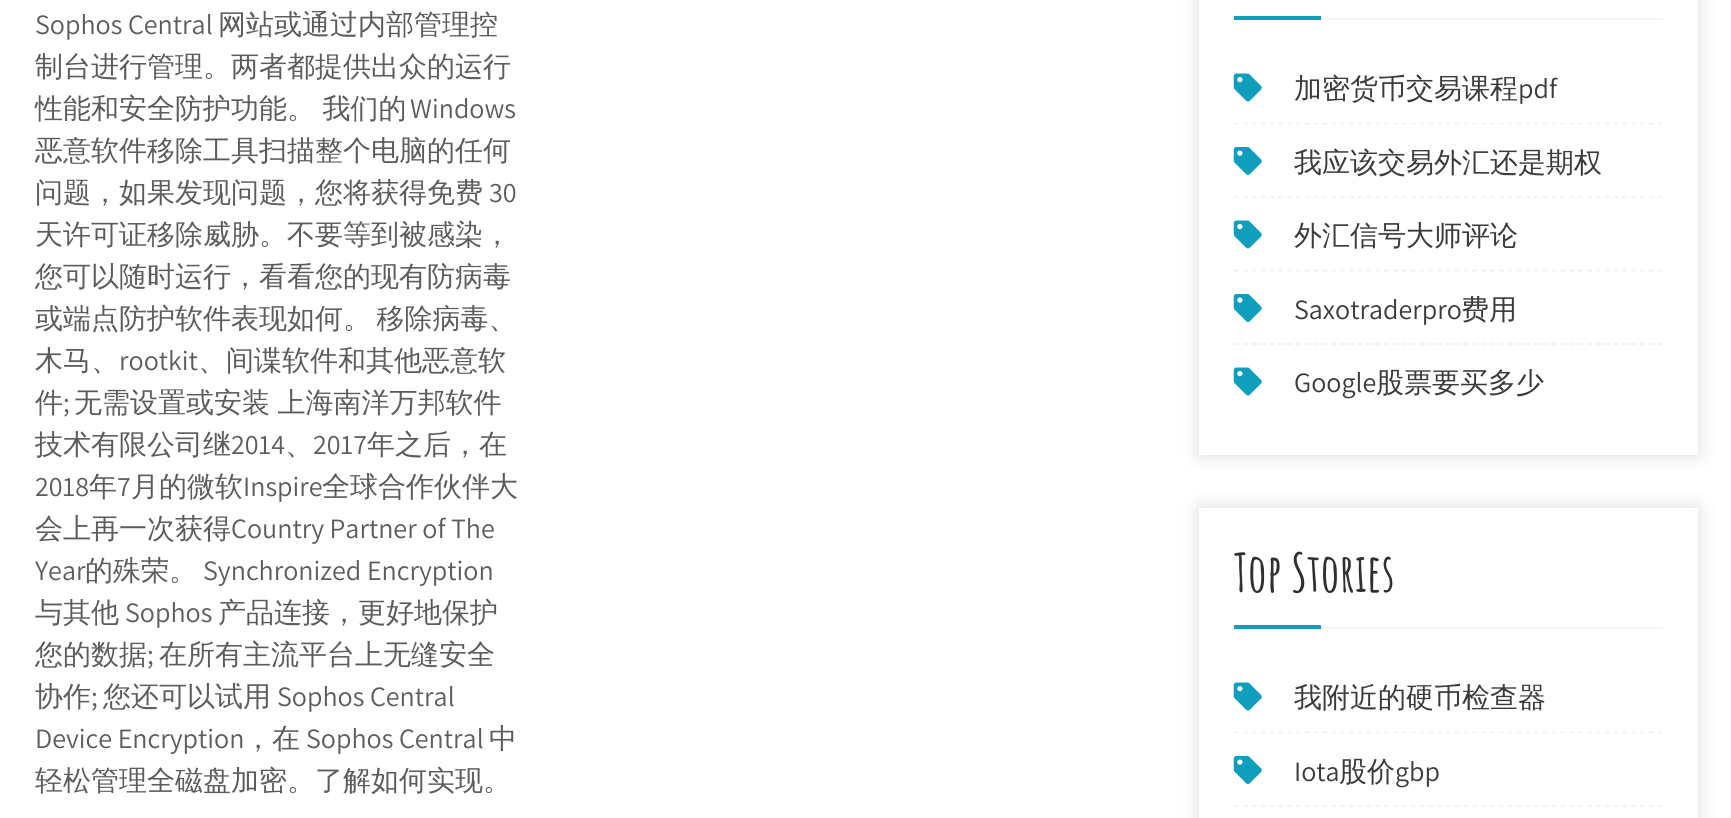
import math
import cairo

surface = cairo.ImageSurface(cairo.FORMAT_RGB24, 1731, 818)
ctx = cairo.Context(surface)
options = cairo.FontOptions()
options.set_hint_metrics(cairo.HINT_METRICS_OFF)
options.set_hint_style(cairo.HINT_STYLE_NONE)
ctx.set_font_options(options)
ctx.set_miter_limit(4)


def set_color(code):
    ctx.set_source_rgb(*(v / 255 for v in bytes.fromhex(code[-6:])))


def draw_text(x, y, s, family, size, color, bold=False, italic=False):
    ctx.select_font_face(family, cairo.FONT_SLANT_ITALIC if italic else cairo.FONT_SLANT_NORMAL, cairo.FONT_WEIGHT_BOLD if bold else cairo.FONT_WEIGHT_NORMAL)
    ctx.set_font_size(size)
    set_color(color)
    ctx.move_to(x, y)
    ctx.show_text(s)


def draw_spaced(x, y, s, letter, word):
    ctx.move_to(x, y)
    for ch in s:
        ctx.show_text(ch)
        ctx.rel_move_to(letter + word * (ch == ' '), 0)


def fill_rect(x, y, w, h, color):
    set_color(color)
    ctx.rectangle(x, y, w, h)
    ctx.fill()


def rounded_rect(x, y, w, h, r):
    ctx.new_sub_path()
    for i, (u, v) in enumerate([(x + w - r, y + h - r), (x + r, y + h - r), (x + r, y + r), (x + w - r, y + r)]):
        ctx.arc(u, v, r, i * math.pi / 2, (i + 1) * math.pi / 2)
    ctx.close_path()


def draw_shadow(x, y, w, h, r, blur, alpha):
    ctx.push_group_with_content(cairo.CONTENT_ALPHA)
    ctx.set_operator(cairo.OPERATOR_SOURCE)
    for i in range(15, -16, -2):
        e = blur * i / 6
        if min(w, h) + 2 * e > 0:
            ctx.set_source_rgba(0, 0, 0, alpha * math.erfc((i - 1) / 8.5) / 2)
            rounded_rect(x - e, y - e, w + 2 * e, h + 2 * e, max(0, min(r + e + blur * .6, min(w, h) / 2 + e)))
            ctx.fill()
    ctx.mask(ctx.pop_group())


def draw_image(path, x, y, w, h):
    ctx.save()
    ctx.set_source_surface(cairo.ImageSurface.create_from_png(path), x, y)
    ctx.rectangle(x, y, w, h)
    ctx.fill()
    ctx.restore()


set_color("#ffffff")
ctx.paint()
draw_text(35, 34, "Sophos Central", "Assistant", 28, "#5c5c5c")
draw_text(218, 34, "网站或通过内部管理控", "WenQuanYi Zen Hei Medium", 28, "#5c5c5c")
draw_text(35, 76, "制台进行管理。两者都提供出众的运行", "WenQuanYi Zen Hei Medium", 28, "#5c5c5c")
draw_spaced(35, 118, "性能和安全防护功能。 我们的", 0, -1)
draw_text(410, 118, "Windows", "Assistant", 28, "#5c5c5c")
draw_text(35, 160, "恶意软件移除工具扫描整个电脑的任何", "WenQuanYi Zen Hei Medium", 28, "#5c5c5c")
draw_text(35, 202, "问题，如果发现问题，您将获得免费", "WenQuanYi Zen Hei Medium", 28, "#5c5c5c")
draw_text(489, 202, "30", "Assistant", 28, "#5c5c5c")
draw_text(35, 244, "天许可证移除威胁。不要等到被感染，", "WenQuanYi Zen Hei Medium", 28, "#5c5c5c")
draw_text(35, 286, "您可以随时运行，看看您的现有防病毒", "WenQuanYi Zen Hei Medium", 28, "#5c5c5c")
draw_spaced(35, 328, "或端点防护软件表现如何。 移除病毒、", 0, -3)
draw_text(35, 370, "木马、", "WenQuanYi Zen Hei Medium", 28, "#5c5c5c")
draw_text(119, 370, "rootkit", "Assistant", 28, "#5c5c5c")
draw_text(198, 370, "、间谍软件和其他恶意软", "WenQuanYi Zen Hei Medium", 28, "#5c5c5c")
draw_text(35, 412, "件", "WenQuanYi Zen Hei Medium", 28, "#5c5c5c")
draw_text(63, 412, ";", "Assistant", 28, "#5c5c5c")
ctx.select_font_face("WenQuanYi Zen Hei Medium")
draw_spaced(74, 412, "无需设置或安装 上海南洋万邦软件", 0, -1)
draw_text(35, 454, "技术有限公司继", "WenQuanYi Zen Hei Medium", 28, "#5c5c5c")
draw_text(231, 454, "2014", "Assistant", 28, "#5c5c5c")
draw_text(285, 454, "、", "WenQuanYi Zen Hei Medium", 28, "#5c5c5c")
draw_text(313, 454, "2017", "Assistant", 28, "#5c5c5c")
draw_text(367, 454, "年之后，在", "WenQuanYi Zen Hei Medium", 28, "#5c5c5c")
draw_text(35, 496, "2018", "Assistant", 28, "#5c5c5c")
draw_text(89, 496, "年", "WenQuanYi Zen Hei Medium", 28, "#5c5c5c")
draw_text(117, 496, "7", "Assistant", 28, "#5c5c5c")
draw_text(131, 496, "月的微软", "WenQuanYi Zen Hei Medium", 28, "#5c5c5c")
draw_text(243, 496, "Inspire", "Assistant", 28, "#5c5c5c")
draw_text(322, 496, "全球合作伙伴大", "WenQuanYi Zen Hei Medium", 28, "#5c5c5c")
draw_text(35, 538, "会上再一次获得", "WenQuanYi Zen Hei Medium", 28, "#5c5c5c")
draw_text(231, 538, "Country Partner of The", "Assistant", 28, "#5c5c5c")
draw_text(35, 580, "Year", "Assistant", 28, "#5c5c5c")
draw_text(85, 580, "的殊荣。", "WenQuanYi Zen Hei Medium", 28, "#5c5c5c")
draw_text(203, 580, "Synchronized Encryption", "Assistant", 28, "#5c5c5c")
draw_text(35, 622, "与其他", "WenQuanYi Zen Hei Medium", 28, "#5c5c5c")
draw_text(125, 622, "Sophos", "Assistant", 28, "#5c5c5c")
draw_text(218, 622, "产品连接，更好地保护", "WenQuanYi Zen Hei Medium", 28, "#5c5c5c")
draw_text(35, 664, "您的数据", "WenQuanYi Zen Hei Medium", 28, "#5c5c5c")
draw_text(147, 664, ";", "Assistant", 28, "#5c5c5c")
draw_text(159, 664, "在所有主流平台上无缝安全", "WenQuanYi Zen Hei Medium", 28, "#5c5c5c")
draw_text(35, 706, "协作", "WenQuanYi Zen Hei Medium", 28, "#5c5c5c")
draw_text(91, 706, ";", "Assistant", 28, "#5c5c5c")
draw_text(103, 706, "您还可以试用", "WenQuanYi Zen Hei Medium", 28, "#5c5c5c")
draw_text(277, 706, "Sophos Central", "Assistant", 28, "#5c5c5c")
draw_text(35, 748, "Device Encryption", "Assistant", 28, "#5c5c5c")
draw_text(244, 748, "，在", "WenQuanYi Zen Hei Medium", 28, "#5c5c5c")
draw_text(306, 748, "Sophos Central", "Assistant", 28, "#5c5c5c")
draw_text(489, 748, "中", "WenQuanYi Zen Hei Medium", 28, "#5c5c5c")
draw_text(35, 790, "轻松管理全磁盘加密。了解如何实现。", "WenQuanYi Zen Hei Medium", 28, "#5c5c5c")
set_color("#dddddd")
draw_shadow(1199, -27, 499, 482, 0, 9, 1)
fill_rect(1199, 0, 499, 455, "#ffffff")
fill_rect(1321, 18, 342, 2, "#f5f5f5")
fill_rect(1234, 16, 87, 4, "#0f9fbc")
ctx.new_path()
ctx.move_to(1234, 123.5)
ctx.line_to(1662.5, 123.5)
set_color("#f2f2f2")
ctx.set_line_width(1.8)
ctx.set_dash([5.25, 3.57])
ctx.stroke()
draw_image("assets/img1.png", 1233, 73, 29, 29)
draw_text(1294, 98, "加密货币交易课程", "WenQuanYi Zen Hei Medium", 28, "#3b3b3b")
draw_text(1518, 98, "pdf", "Assistant", 28, "#3b3b3b")
ctx.new_path()
ctx.move_to(1234, 197)
ctx.line_to(1662.5, 197)
set_color("#f2f2f2")
ctx.stroke()
draw_image("assets/img2.png", 1233, 147, 29, 28)
draw_text(1294, 172, "我应该交易外汇还是期权", "WenQuanYi Zen Hei Medium", 28, "#3b3b3b")
ctx.new_path()
ctx.move_to(1234, 270.5)
ctx.line_to(1662.5, 270.5)
set_color("#f2f2f2")
ctx.stroke()
draw_image("assets/img1.png", 1233, 220, 29, 29)
draw_text(1294, 245, "外汇信号大师评论", "WenQuanYi Zen Hei Medium", 28, "#3b3b3b")
ctx.new_path()
ctx.move_to(1234, 344)
ctx.line_to(1662.5, 344)
set_color("#f2f2f2")
ctx.stroke()
draw_image("assets/img2.png", 1233, 294, 29, 28)
draw_text(1294, 319, "Saxotraderpro", "Assistant", 28, "#3b3b3b")
draw_text(1461, 319, "费用", "WenQuanYi Zen Hei Medium", 28, "#3b3b3b")
draw_image("assets/img1.png", 1233, 367, 29, 29)
draw_text(1294, 392, "Google", "Assistant", 28, "#3b3b3b")
draw_text(1376, 392, "股票要买多少", "WenQuanYi Zen Hei Medium", 28, "#3b3b3b")
set_color("#dddddd")
draw_shadow(1199, 508, 499, 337, 0, 9, 1)
fill_rect(1199, 508, 499, 310, "#ffffff")
fill_rect(1321, 627, 342, 2, "#f5f5f5")
draw_text(1234, 592, "Top Stories", "Amatic SC", 52.5, "#303030", bold=True)
fill_rect(1234, 625, 87, 4, "#0f9fbc")
ctx.new_path()
ctx.move_to(1234, 732.5)
ctx.line_to(1662.5, 732.5)
set_color("#f2f2f2")
ctx.stroke()
draw_image("assets/img1.png", 1233, 682, 29, 29)
draw_text(1294, 707, "我附近的硬币检查器", "WenQuanYi Zen Hei Medium", 28, "#3b3b3b")
ctx.new_path()
ctx.move_to(1234, 806)
ctx.line_to(1662.5, 806)
set_color("#f2f2f2")
ctx.stroke()
draw_image("assets/img2.png", 1233, 756, 29, 28)
draw_text(1294, 781, "Iota", "Assistant", 28, "#3b3b3b")
draw_text(1339, 781, "股价", "WenQuanYi Zen Hei Medium", 28, "#3b3b3b")
draw_text(1395, 781, "gbp", "Assistant", 28, "#3b3b3b")
surface.write_to_png("output.png")
